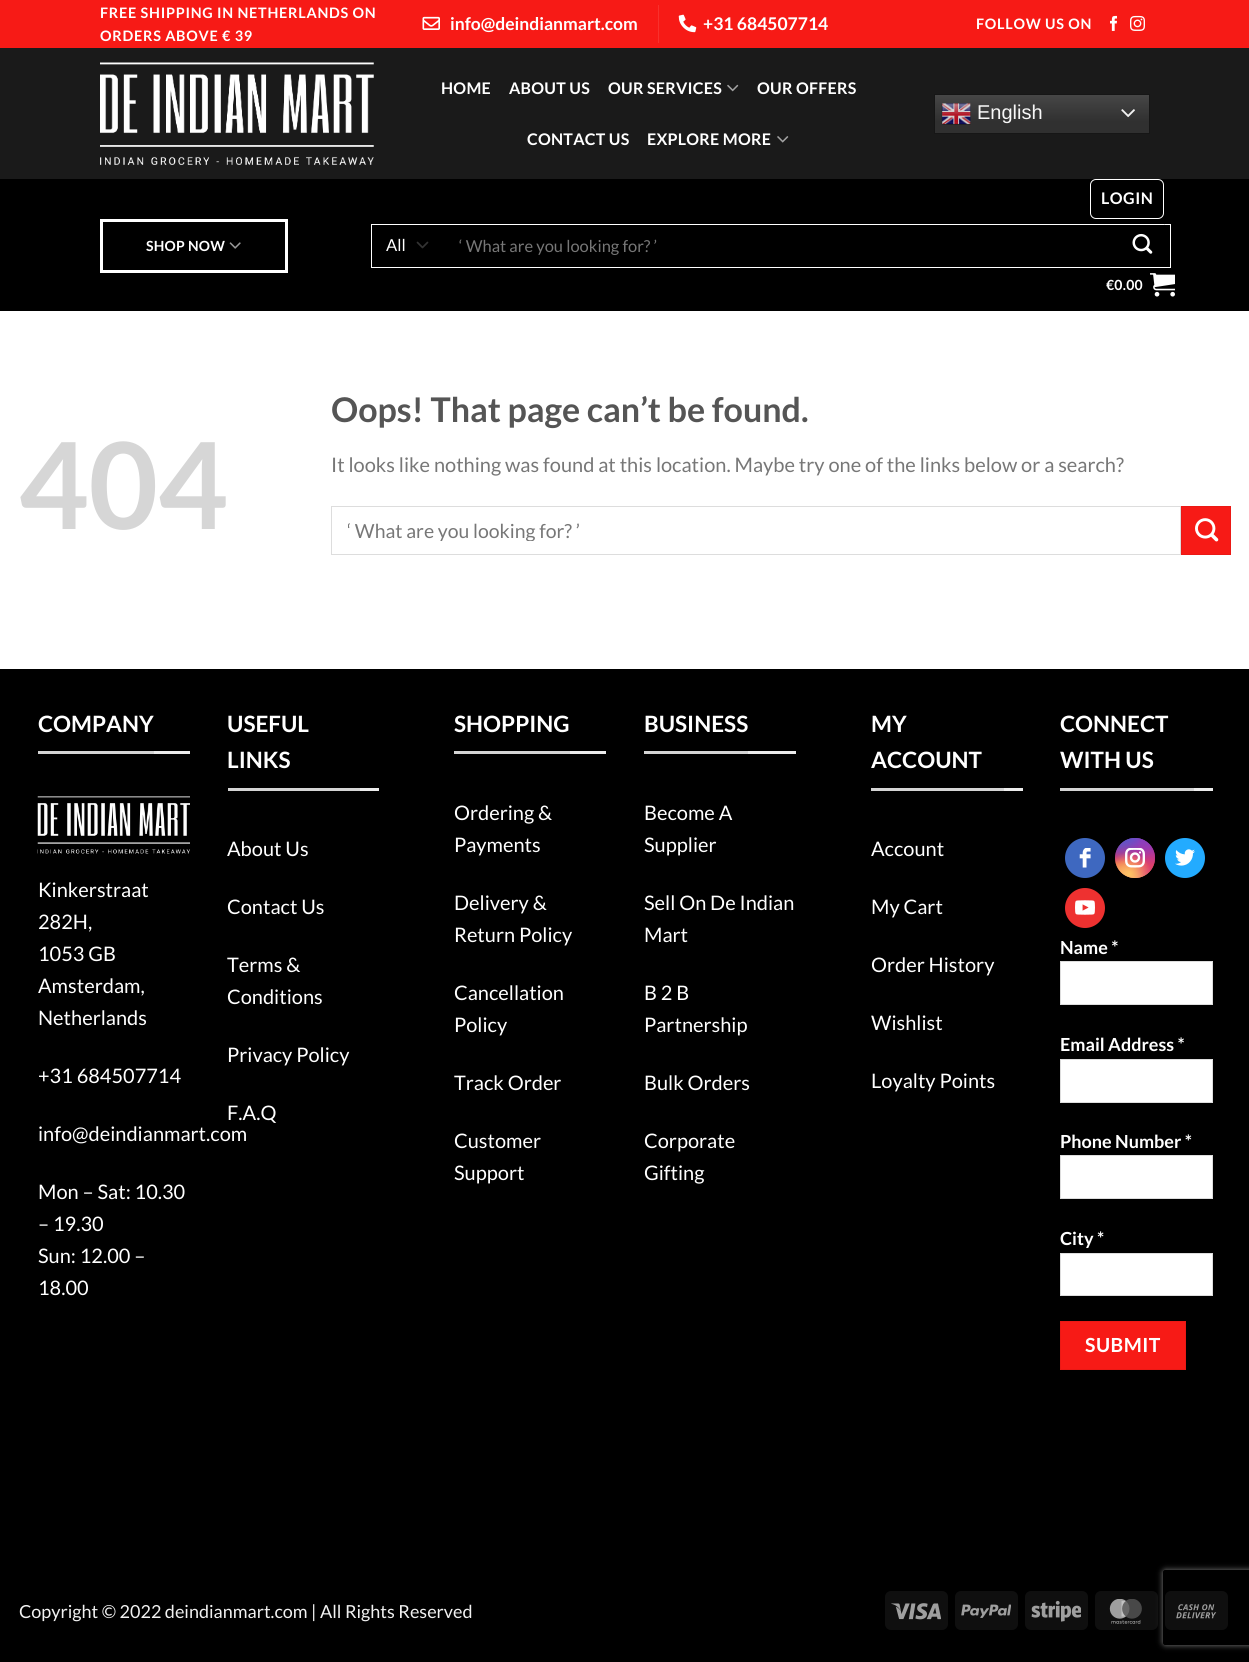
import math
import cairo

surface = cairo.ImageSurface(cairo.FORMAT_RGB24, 1249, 1662)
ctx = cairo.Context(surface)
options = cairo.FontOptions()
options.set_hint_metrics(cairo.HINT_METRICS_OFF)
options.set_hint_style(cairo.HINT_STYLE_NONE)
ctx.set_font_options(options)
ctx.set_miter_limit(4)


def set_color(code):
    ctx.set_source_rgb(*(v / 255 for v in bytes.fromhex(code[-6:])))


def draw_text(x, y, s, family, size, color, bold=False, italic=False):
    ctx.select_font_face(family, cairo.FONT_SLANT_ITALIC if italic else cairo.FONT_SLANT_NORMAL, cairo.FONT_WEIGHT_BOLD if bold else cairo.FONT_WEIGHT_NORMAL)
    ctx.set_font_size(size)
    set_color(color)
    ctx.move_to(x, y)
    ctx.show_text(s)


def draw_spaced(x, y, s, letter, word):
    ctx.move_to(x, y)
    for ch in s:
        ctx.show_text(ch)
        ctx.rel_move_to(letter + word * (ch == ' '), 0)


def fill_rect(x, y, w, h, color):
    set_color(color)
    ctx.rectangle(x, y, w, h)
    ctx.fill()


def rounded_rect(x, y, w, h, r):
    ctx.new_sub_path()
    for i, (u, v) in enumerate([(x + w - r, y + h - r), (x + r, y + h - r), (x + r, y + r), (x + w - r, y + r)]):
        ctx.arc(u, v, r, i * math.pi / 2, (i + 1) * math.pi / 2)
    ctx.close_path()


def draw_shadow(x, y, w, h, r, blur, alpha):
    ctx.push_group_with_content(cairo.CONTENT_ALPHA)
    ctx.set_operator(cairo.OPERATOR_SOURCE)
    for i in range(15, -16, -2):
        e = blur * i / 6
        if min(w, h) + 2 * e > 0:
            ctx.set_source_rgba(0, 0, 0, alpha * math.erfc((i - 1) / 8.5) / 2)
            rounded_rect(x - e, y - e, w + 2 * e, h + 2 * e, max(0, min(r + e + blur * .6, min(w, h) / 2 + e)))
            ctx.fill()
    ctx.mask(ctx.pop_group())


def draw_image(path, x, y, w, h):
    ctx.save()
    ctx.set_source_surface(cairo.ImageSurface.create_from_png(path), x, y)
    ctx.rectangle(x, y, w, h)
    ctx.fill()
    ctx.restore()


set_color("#000000")
ctx.paint()
fill_rect(0, 311, 1249, 358, "#ffffff")
fill_rect(0, 0, 1249, 48, "#f71a16")
ctx.select_font_face("Lato", cairo.FONT_SLANT_NORMAL, cairo.FONT_WEIGHT_BOLD)
ctx.set_font_size(14.4)
set_color("#ffffff")
draw_spaced(100, 18, "FREE SHIPPING IN NETHERLANDS ON", 0.75, 0)
draw_spaced(100, 41, "ORDERS ABOVE € 39", 0.75, 0)
draw_image("assets/img1.png", 422, 16, 18, 14)
draw_text(450, 30, "info@deindianmart.com", "Lato", 17.5, "#ffffff", bold=True)
fill_rect(658, 5, 1, 38, "#f8312d")
draw_image("assets/img2.png", 678, 14, 19, 19)
draw_text(703, 30, "+31 684507714", "Lato", 17.5, "#ffffff", bold=True)
ctx.set_font_size(14.4)
draw_spaced(976, 29, "FOLLOW US ON", 0.75, 0)
draw_image("assets/img3.png", 1110, 15, 7, 16)
draw_image("assets/img4.png", 1130, 15, 15, 16)
fill_rect(0, 48, 1249, 131, "#1a1a1a")
draw_image("assets/img5.png", 100, 62, 274, 103)
ctx.set_font_size(16)
set_color("#ffffff")
draw_spaced(441, 94, "HOME", 0.25, 0)
draw_spaced(509, 94, "ABOUT US", 0.25, 0)
draw_spaced(608, 94, "OUR SERVICES", 0.25, 0)
draw_image("assets/img6.png", 727, 84, 12, 8)
draw_spaced(757, 94, "OUR OFFERS", 0.25, 0)
draw_spaced(527, 145, "CONTACT US", 0.25, 0)
draw_spaced(647, 145, "EXPLORE MORE", 0.25, 0)
draw_image("assets/img7.png", 777, 136, 12, 7)
gradient = cairo.LinearGradient(1042, 94, 1042, 134)
gradient.add_color_stop_rgba(0, 0.278, 0.278, 0.278, 1)
gradient.add_color_stop_rgba(0.7, 0.188, 0.188, 0.188, 1)
ctx.set_source(gradient)
ctx.rectangle(935, 95, 214, 38)
ctx.fill()
ctx.rectangle(934.5, 94.5, 215, 39)
set_color("#161616")
ctx.set_line_width(1)
ctx.stroke()
draw_image("assets/img8.png", 941, 103, 30, 22)
draw_text(977, 119, "English", "Liberation Sans", 20, "#f7f7f7")
draw_image("assets/img9.png", 1121, 109, 14, 9)
ctx.rectangle(101.5, 220.5, 185, 51)
set_color("#ffffff")
ctx.set_line_width(3)
ctx.stroke()
ctx.select_font_face("Lato", cairo.FONT_SLANT_NORMAL, cairo.FONT_WEIGHT_BOLD)
ctx.set_font_size(14)
draw_spaced(146, 251, "SHOP NOW", 0.25, 0)
draw_image("assets/img10.png", 229, 242, 12, 7)
ctx.rectangle(371.5, 224.5, 799, 43)
ctx.set_line_width(1)
ctx.stroke()
ctx.new_path()
ctx.move_to(417.5, 242.5)
ctx.line_to(422.5, 247.5)
ctx.line_to(427.5, 242.5)
set_color("#333333")
ctx.set_line_width(1.7)
ctx.set_line_cap(cairo.LINE_CAP_ROUND)
ctx.set_line_join(cairo.LINE_JOIN_ROUND)
ctx.stroke()
draw_text(386, 251, "All", "Lato", 16.5, "#ffffff")
draw_text(459, 252, "‘ What are you looking for? ’", "Lato", 16.5, "#777777")
draw_image("assets/img11.png", 1132, 233, 21, 21)
rounded_rect(1090.5, 179.5, 73, 39, 5.5)
set_color("#ffffff")
ctx.set_line_width(1)
ctx.set_line_cap(cairo.LINE_CAP_BUTT)
ctx.set_line_join(cairo.LINE_JOIN_MITER)
ctx.stroke()
ctx.select_font_face("Lato", cairo.FONT_SLANT_NORMAL, cairo.FONT_WEIGHT_BOLD)
ctx.set_font_size(16)
draw_spaced(1101, 204, "LOGIN", 0.5, 0)
ctx.set_source_rgba(0, 0, 0, 0.1)
ctx.rectangle(1164, 219, 1, 6)
ctx.fill()
ctx.set_font_size(14)
set_color("#ffffff")
draw_spaced(1106, 290, "€0.00", 0.25, 0)
draw_image("assets/img12.png", 1150, 273, 25, 24)
draw_text(19, 529, "404", "Lato", 120, "#d6d6d6", bold=True)
draw_text(331, 422, "Oops! That page can’t be found.", "Lato", 34, "#555555", bold=True)
draw_text(331, 472, "It looks like nothing was found at this location. Maybe try one of the links below or a search?", "Lato", 20, "#777777")
ctx.rectangle(331.5, 506.5, 849, 48)
set_color("#dddddd")
ctx.stroke()
ctx.save()
ctx.rectangle(348, 519, 813, 22)
ctx.clip()
draw_text(347, 538, "‘ What are you looking for? ’", "Lato", 19.4, "#777777")
ctx.restore()
set_color("#f71a16")
ctx.rectangle(1181.5, 506.5, 49, 48)
ctx.fill_preserve()
set_color("#eb1915")
ctx.stroke()
draw_image("assets/img13.png", 1195, 518, 24, 24)
fill_rect(154, 751, 36, 3, "#ececec")
fill_rect(38, 751, 116, 3, "#d4d4d4")
draw_text(38, 732, "COMPANY", "Lato", 22.5, "#ffffff", bold=True)
draw_image("assets/img14.png", 37, 796, 153, 58)
draw_text(38, 897, "Kinkerstraat", "Lato", 20, "#ffffff")
draw_text(38, 929, "282H,", "Lato", 20, "#ffffff")
draw_text(38, 961, "1053 GB", "Lato", 20, "#ffffff")
draw_text(38, 993, "Amsterdam,", "Lato", 20, "#ffffff")
draw_text(38, 1025, "Netherlands", "Lato", 20, "#ffffff")
draw_text(38, 1083, "+31 684507714", "Lato", 20, "#ffffff")
draw_text(38, 1141, "info@deindianmart.com", "Lato", 20, "#ffffff")
draw_text(38, 1199, "Mon – Sat: 10.30", "Lato", 20, "#ffffff")
draw_text(38, 1231, "– 19.30", "Lato", 20, "#ffffff")
draw_text(38, 1263, "Sun: 12.00 –", "Lato", 20, "#ffffff")
draw_text(38, 1295, "18.00", "Lato", 20, "#ffffff")
fill_rect(360, 788, 19, 3, "#ececec")
fill_rect(228, 788, 132, 3, "#d4d4d4")
draw_text(227, 732, "USEFUL", "Lato", 22.5, "#ffffff", bold=True)
draw_text(227, 768, "LINKS", "Lato", 22.5, "#ffffff", bold=True)
draw_text(227, 856, "About Us", "Lato", 20, "#ffffff")
draw_text(227, 914, "Contact Us", "Lato", 20, "#ffffff")
draw_text(227, 972, "Terms &", "Lato", 20, "#ffffff")
draw_text(227, 1004, "Conditions", "Lato", 20, "#ffffff")
draw_text(227, 1062, "Privacy Policy", "Lato", 20, "#ffffff")
draw_text(227, 1120, "F.A.Q", "Lato", 20, "#ffffff")
fill_rect(570, 751, 36, 3, "#ececec")
fill_rect(454, 751, 116, 3, "#d4d4d4")
draw_text(454, 732, "SHOPPING", "Lato", 22.5, "#ffffff", bold=True)
draw_text(454, 820, "Ordering &", "Lato", 20, "#ffffff")
draw_text(454, 852, "Payments", "Lato", 20, "#ffffff")
draw_text(454, 910, "Delivery &", "Lato", 20, "#ffffff")
draw_text(454, 942, "Return Policy", "Lato", 20, "#ffffff")
draw_text(454, 1000, "Cancellation", "Lato", 20, "#ffffff")
draw_text(454, 1032, "Policy", "Lato", 20, "#ffffff")
draw_text(454, 1090, "Track Order", "Lato", 20, "#ffffff")
draw_text(454, 1148, "Customer", "Lato", 20, "#ffffff")
draw_text(454, 1180, "Support", "Lato", 20, "#ffffff")
fill_rect(748, 751, 48, 3, "#ececec")
fill_rect(644, 751, 104, 3, "#d4d4d4")
draw_text(644, 732, "BUSINESS", "Lato", 22.5, "#ffffff", bold=True)
draw_text(644, 820, "Become A", "Lato", 20, "#ffffff")
draw_text(644, 852, "Supplier", "Lato", 20, "#ffffff")
draw_text(644, 910, "Sell On De Indian", "Lato", 20, "#ffffff")
draw_text(644, 942, "Mart", "Lato", 20, "#ffffff")
draw_text(644, 1000, "B 2 B", "Lato", 20, "#ffffff")
draw_text(644, 1032, "Partnership", "Lato", 20, "#ffffff")
draw_text(644, 1090, "Bulk Orders", "Lato", 20, "#ffffff")
draw_text(644, 1148, "Corporate", "Lato", 20, "#ffffff")
draw_text(644, 1180, "Gifting", "Lato", 20, "#ffffff")
fill_rect(1004, 788, 19, 3, "#ececec")
fill_rect(871, 788, 133, 3, "#d4d4d4")
draw_text(871, 732, "MY", "Lato", 22.5, "#ffffff", bold=True)
draw_text(871, 768, "ACCOUNT", "Lato", 22.5, "#ffffff", bold=True)
draw_text(871, 856, "Account", "Lato", 20, "#ffffff")
draw_text(871, 914, "My Cart", "Lato", 20, "#ffffff")
draw_text(871, 972, "Order History", "Lato", 20, "#ffffff")
draw_text(871, 1030, "Wishlist", "Lato", 20, "#ffffff")
draw_text(871, 1088, "Loyalty Points", "Lato", 20, "#ffffff")
fill_rect(1194, 788, 19, 3, "#ececec")
fill_rect(1060, 788, 134, 3, "#d4d4d4")
draw_text(1060, 732, "CONNECT", "Lato", 22.5, "#ffffff", bold=True)
draw_text(1060, 768, "WITH US", "Lato", 22.5, "#ffffff", bold=True)
set_color("#3e68c0")
ctx.new_path()
ctx.arc(1085, 858, 20, 0, 2 * math.pi)
ctx.fill()
draw_image("assets/img15.png", 1079, 848, 12, 20)
gradient = cairo.LinearGradient(1135, 838, 1135, 878)
gradient.add_color_stop_rgba(0, 0.396, 0.349, 0.792, 1)
gradient.add_color_stop_rgba(0.3, 0.737, 0.192, 0.561, 1)
gradient.add_color_stop_rgba(0.5, 0.89, 0.247, 0.373, 1)
gradient.add_color_stop_rgba(0.7, 0.969, 0.463, 0.22, 1)
gradient.add_color_stop_rgba(1, 0.996, 0.776, 0.427, 1)
ctx.set_source(gradient)
ctx.arc(1135, 858, 20, 0, 2 * math.pi)
ctx.fill()
gradient = cairo.RadialGradient(1155, 878, 0, 1155, 878, 57)
gradient.add_color_stop_rgba(0, 0.851, 0.192, 0.478, 1)
gradient.add_color_stop_rgba(1, 0.851, 0.192, 0.478, 0)
ctx.set_source(gradient)
ctx.arc(1135, 858, 20, 0, 2 * math.pi)
ctx.fill()
gradient = cairo.RadialGradient(0, 0, 0, 0, 0, 1)
gradient.set_matrix(cairo.Matrix(1 / 34, 0, 0, 1 / 68, -1 * 1139 / 34, -1 * 830 / 68))
gradient.add_color_stop_rgba(0, 0.537, 0.239, 0.761, 1)
gradient.add_color_stop_rgba(0.5, 0.537, 0.239, 0.761, 0)
ctx.set_source(gradient)
ctx.arc(1135, 858, 20, 0, 2 * math.pi)
ctx.fill()
gradient = cairo.RadialGradient(1155, 838, 0, 1155, 838, 57)
gradient.add_color_stop_rgba(0, 0.537, 0.239, 0.761, 1)
gradient.add_color_stop_rgba(0.5, 0.537, 0.239, 0.761, 0)
ctx.set_source(gradient)
ctx.arc(1135, 858, 20, 0, 2 * math.pi)
ctx.fill()
gradient = cairo.RadialGradient(0, 0, 0, 0, 0, 1)
gradient.set_matrix(cairo.Matrix(1 / 45, 0, 0, 1 / 85, -1 * 1123 / 45, -1 * 818 / 85))
gradient.add_color_stop_rgba(0, 0.322, 0.345, 0.812, 1)
gradient.add_color_stop_rgba(0.5, 0.322, 0.345, 0.812, 0)
ctx.set_source(gradient)
ctx.arc(1135, 858, 20, 0, 2 * math.pi)
ctx.fill()
gradient = cairo.RadialGradient(0, 0, 0, 0, 0, 1)
gradient.set_matrix(cairo.Matrix(1 / 57, 0, 0, 1 / 71, -1 * 1115 / 57, -1 * 828 / 71))
gradient.add_color_stop_rgba(0, 0.322, 0.345, 0.812, 1)
gradient.add_color_stop_rgba(0.5, 0.322, 0.345, 0.812, 0)
ctx.set_source(gradient)
ctx.arc(1135, 858, 20, 0, 2 * math.pi)
ctx.fill()
gradient = cairo.RadialGradient(1115, 894, 0, 1115, 894, 69)
gradient.add_color_stop_rgba(0, 0.996, 0.773, 0.392, 1)
gradient.add_color_stop_rgba(0.5, 0.996, 0.773, 0.392, 0)
ctx.set_source(gradient)
ctx.arc(1135, 858, 20, 0, 2 * math.pi)
ctx.fill()
gradient = cairo.RadialGradient(1129, 874, 0, 1129, 874, 44)
gradient.add_color_stop_rgba(0, 0.996, 0.773, 0.392, 1)
gradient.add_color_stop_rgba(0.5, 0.996, 0.773, 0.392, 0)
ctx.set_source(gradient)
ctx.arc(1135, 858, 20, 0, 2 * math.pi)
ctx.fill()
draw_image("assets/img16.png", 1125, 848, 20, 20)
set_color("#23abff")
ctx.arc(1185, 858, 20, 0, 2 * math.pi)
ctx.fill()
draw_image("assets/img17.png", 1175, 849, 20, 17)
set_color("#ee3130")
ctx.arc(1085, 908, 20, 0, 2 * math.pi)
ctx.fill()
draw_image("assets/img18.png", 1075, 900, 20, 15)
draw_text(1060, 954, "Name *", "Lato", 18, "#ffffff", bold=True)
ctx.rectangle(1060.5, 961.5, 152, 43)
ctx.fill_preserve()
set_color("#dddddd")
ctx.stroke()
draw_text(1060, 1051, "Email Address *", "Lato", 18, "#ffffff", bold=True)
ctx.rectangle(1060.5, 1059.5, 152, 43)
ctx.fill_preserve()
set_color("#dddddd")
ctx.stroke()
draw_text(1060, 1148, "Phone Number *", "Lato", 18, "#ffffff", bold=True)
ctx.rectangle(1060.5, 1155.5, 152, 43)
ctx.fill_preserve()
set_color("#dddddd")
ctx.stroke()
draw_text(1060, 1245, "City *", "Lato", 18, "#ffffff", bold=True)
ctx.rectangle(1060.5, 1253.5, 152, 42)
ctx.fill_preserve()
set_color("#dddddd")
ctx.stroke()
set_color("#f71a16")
ctx.rectangle(1060.5, 1321.5, 125, 48)
ctx.fill_preserve()
set_color("#eb1915")
ctx.stroke()
ctx.set_font_size(19.4)
set_color("#ffffff")
draw_spaced(1085, 1352, "SUBMIT", 0.5, 0)
draw_text(19, 1618, "Copyright © 2022 deindianmart.com | All Rights Reserved", "Lato", 18, "#f1f1f1")
set_color("#0f0f0f")
rounded_rect(885, 1591, 63, 39, 6)
ctx.fill()
draw_image("assets/img19.png", 891, 1603, 50, 17)
rounded_rect(955, 1591, 63, 39, 6)
ctx.fill()
draw_image("assets/img20.png", 961, 1604, 50, 14)
rounded_rect(1025, 1591, 63, 39, 6)
ctx.fill()
draw_image("assets/img21.png", 1031, 1600, 50, 22)
rounded_rect(1095, 1591, 63, 39, 6)
ctx.fill()
draw_image("assets/img22.png", 1109, 1599, 33, 25)
rounded_rect(1165, 1591, 63, 39, 6)
ctx.fill()
draw_image("assets/img23.png", 1176, 1604, 41, 15)
ctx.save()
ctx.set_fill_rule(cairo.FILL_RULE_EVEN_ODD)
ctx.new_path()
ctx.move_to(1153, 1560)
ctx.line_to(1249, 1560)
ctx.line_to(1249, 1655)
ctx.line_to(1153, 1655)
ctx.close_path()
ctx.move_to(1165.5, 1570)
ctx.line_to(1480.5, 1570)
ctx.curve_to(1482, 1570, 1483, 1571, 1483, 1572.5)
ctx.line_to(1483, 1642.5)
ctx.curve_to(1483, 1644, 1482, 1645, 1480.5, 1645)
ctx.line_to(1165.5, 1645)
ctx.curve_to(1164, 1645, 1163, 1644, 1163, 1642.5)
ctx.line_to(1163, 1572.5)
ctx.curve_to(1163, 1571, 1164, 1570, 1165.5, 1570)
ctx.close_path()
ctx.clip()
set_color("#808080")
draw_shadow(1163, 1570, 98, 75, 2.5, 3, 1)
ctx.restore()
surface.write_to_png("output.png")
